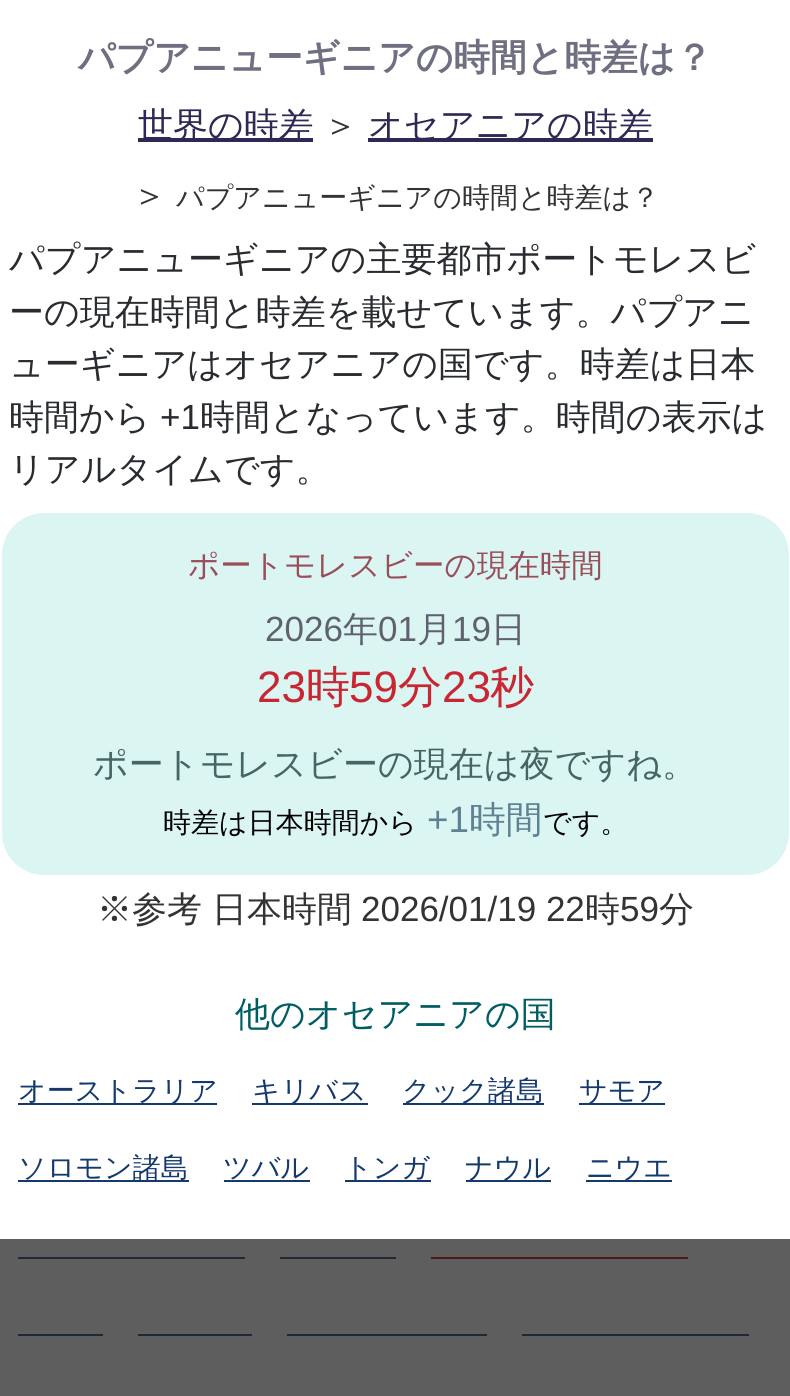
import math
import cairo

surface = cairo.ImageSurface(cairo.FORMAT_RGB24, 790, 1396)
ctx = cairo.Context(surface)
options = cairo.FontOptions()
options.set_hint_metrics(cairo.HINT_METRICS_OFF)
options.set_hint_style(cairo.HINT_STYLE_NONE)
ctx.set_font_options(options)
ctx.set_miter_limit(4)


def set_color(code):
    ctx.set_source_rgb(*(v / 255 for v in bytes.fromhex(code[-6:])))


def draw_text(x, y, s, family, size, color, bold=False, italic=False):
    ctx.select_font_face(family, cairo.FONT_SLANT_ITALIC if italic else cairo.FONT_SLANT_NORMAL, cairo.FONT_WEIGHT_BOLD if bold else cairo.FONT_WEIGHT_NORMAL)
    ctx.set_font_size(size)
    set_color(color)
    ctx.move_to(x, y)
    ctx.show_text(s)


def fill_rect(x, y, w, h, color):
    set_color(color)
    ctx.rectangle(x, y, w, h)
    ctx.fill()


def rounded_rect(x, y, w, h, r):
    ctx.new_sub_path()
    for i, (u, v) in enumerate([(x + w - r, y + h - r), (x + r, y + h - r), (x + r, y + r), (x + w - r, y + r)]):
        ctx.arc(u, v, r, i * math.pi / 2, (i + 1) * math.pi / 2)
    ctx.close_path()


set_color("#ffffff")
ctx.paint()
draw_text(78, 70, "パプアニューギニアの時間と時差は？", "WenQuanYi Zen Hei", 36.75, "#6f6f82", bold=True)
fill_rect(138, 138, 175, 4, "#312754")
draw_text(138, 137, "世界の時差", "WenQuanYi Zen Hei Medium", 35, "#312754")
draw_text(323, 137, "＞", "WenQuanYi Zen Hei Medium", 35, "#333333")
fill_rect(368, 138, 285, 4, "#312754")
draw_text(368, 137, "オセアニアの時差", "WenQuanYi Zen Hei Medium", 35, "#312754")
draw_text(132, 207, "＞", "WenQuanYi Zen Hei Medium", 35, "#333333")
draw_text(176, 207, "パプアニューギニアの時間と時差は？", "WenQuanYi Zen Hei Medium", 28, "#333333")
draw_text(9, 271, "パプアニューギニアの主要都市ポートモレスビ", "WenQuanYi Zen Hei Medium", 35, "#282c30")
draw_text(9, 324, "ーの現在時間と時差を載せています。パプアニ", "WenQuanYi Zen Hei Medium", 35, "#282c30")
draw_text(9, 376, "ューギニアはオセアニアの国です。時差は日本", "WenQuanYi Zen Hei Medium", 35, "#282c30")
draw_text(9, 429, "時間から", "WenQuanYi Zen Hei Medium", 35, "#282c30")
draw_text(160, 429, "+1", "Liberation Sans", 35, "#282c30")
draw_text(200, 429, "時間となっています。時間の表示は", "WenQuanYi Zen Hei Medium", 35, "#282c30")
draw_text(9, 481, "リアルタイムです。", "WenQuanYi Zen Hei Medium", 35, "#282c30")
set_color("#dbf5f2")
rounded_rect(2, 513, 787, 362, 42)
ctx.fill()
draw_text(188, 576, "ポートモレスビーの現在時間", "WenQuanYi Zen Hei Medium", 31.5, "#984f59")
draw_text(265, 641, "2026", "Liberation Sans", 35, "#60616f")
draw_text(343, 641, "年", "WenQuanYi Zen Hei Medium", 35, "#60616f")
draw_text(378, 641, "01", "Liberation Sans", 35, "#60616f")
draw_text(417, 641, "月", "WenQuanYi Zen Hei Medium", 35, "#60616f")
draw_text(452, 641, "19", "Liberation Sans", 35, "#60616f")
draw_text(491, 641, "日", "WenQuanYi Zen Hei Medium", 35, "#60616f")
draw_text(257, 702, "23", "Liberation Sans", 44, "#c92633")
draw_text(306, 702, "時", "WenQuanYi Zen Hei Medium", 44, "#c92633")
draw_text(349, 702, "59", "Liberation Sans", 44, "#c92633")
draw_text(398, 702, "分", "WenQuanYi Zen Hei Medium", 44, "#c92633")
draw_text(442, 702, "23", "Liberation Sans", 44, "#c92633")
draw_text(490, 702, "秒", "WenQuanYi Zen Hei Medium", 44, "#c92633")
draw_text(93, 776, "ポートモレスビーの現在は夜ですね。", "WenQuanYi Zen Hei Medium", 35, "#456662")
draw_text(163, 832, "時差は日本時間から", "WenQuanYi Zen Hei Medium", 28, "#000000")
draw_text(427, 832, "+1", "Liberation Sans", 36.75, "#5e8193")
draw_text(469, 832, "時間", "WenQuanYi Zen Hei Medium", 36.75, "#5e8193")
draw_text(543, 832, "です。", "WenQuanYi Zen Hei Medium", 28, "#000000")
draw_text(97, 921, "※参考", "WenQuanYi Zen Hei Medium", 35, "#333333")
draw_text(212, 921, "日本時間", "WenQuanYi Zen Hei Medium", 35, "#333333")
draw_text(361, 921, "2026/01/19 22", "Liberation Sans", 35, "#333333")
draw_text(585, 921, "時", "WenQuanYi Zen Hei Medium", 35, "#333333")
draw_text(620, 921, "59", "Liberation Sans", 35, "#333333")
draw_text(659, 921, "分", "WenQuanYi Zen Hei Medium", 35, "#333333")
draw_text(235, 1026, "他のオセアニアの国", "WenQuanYi Zen Hei Medium", 35, "#005d62")
fill_rect(18, 1103, 199, 2, "#14396c")
draw_text(18, 1100, "オーストラリア", "WenQuanYi Zen Hei Medium", 28, "#14396c")
fill_rect(252, 1103, 116, 2, "#14396c")
draw_text(252, 1100, "キリバス", "WenQuanYi Zen Hei Medium", 28, "#14396c")
fill_rect(403, 1103, 141, 2, "#14396c")
draw_text(402, 1100, "クック諸島", "WenQuanYi Zen Hei Medium", 28, "#14396c")
fill_rect(579, 1103, 86, 2, "#14396c")
draw_text(579, 1100, "サモア", "WenQuanYi Zen Hei Medium", 28, "#14396c")
fill_rect(18, 1180, 171, 2, "#14396c")
draw_text(18, 1177, "ソロモン諸島", "WenQuanYi Zen Hei Medium", 28, "#14396c")
draw_text(223, 1177, "ツバル", "WenQuanYi Zen Hei Medium", 28, "#14396c")
fill_rect(224, 1180, 86, 2, "#14396c")
fill_rect(345, 1180, 86, 2, "#14396c")
draw_text(344, 1177, "トンガ", "WenQuanYi Zen Hei Medium", 28, "#14396c")
fill_rect(466, 1180, 85, 2, "#14396c")
draw_text(465, 1177, "ナウル", "WenQuanYi Zen Hei Medium", 28, "#14396c")
fill_rect(586, 1180, 86, 2, "#14396c")
draw_text(586, 1177, "ニウエ", "WenQuanYi Zen Hei Medium", 28, "#14396c")
fill_rect(18, 1257, 227, 2, "#14396c")
fill_rect(280, 1257, 116, 2, "#14396c")
fill_rect(431, 1257, 257, 2, "#c80000")
fill_rect(18, 1334, 85, 2, "#14396c")
fill_rect(138, 1334, 114, 2, "#14396c")
fill_rect(287, 1334, 200, 2, "#14396c")
fill_rect(522, 1334, 227, 2, "#14396c")
ctx.set_source_rgba(0.137, 0.137, 0.137, 0.73)
ctx.rectangle(0, 1239, 790, 157)
ctx.fill()
surface.write_to_png("output.png")
